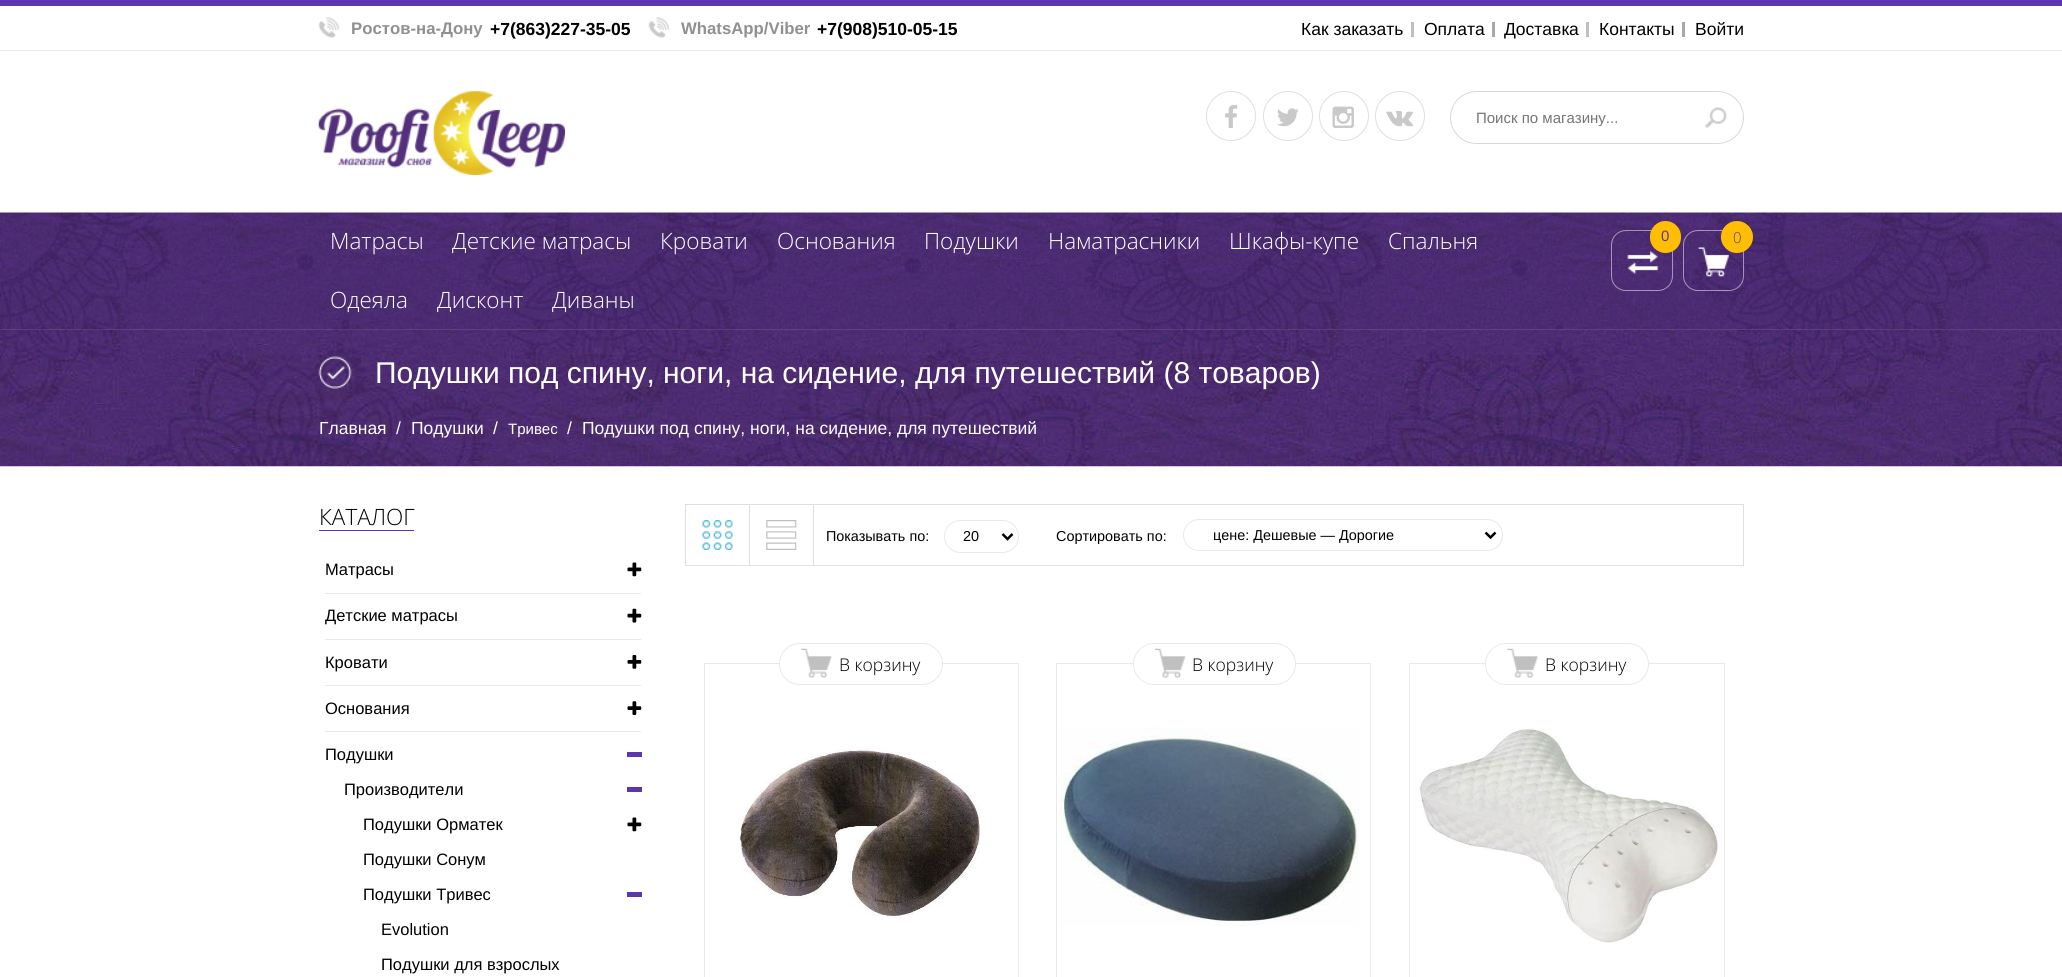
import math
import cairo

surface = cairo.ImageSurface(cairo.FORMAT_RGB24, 2062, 977)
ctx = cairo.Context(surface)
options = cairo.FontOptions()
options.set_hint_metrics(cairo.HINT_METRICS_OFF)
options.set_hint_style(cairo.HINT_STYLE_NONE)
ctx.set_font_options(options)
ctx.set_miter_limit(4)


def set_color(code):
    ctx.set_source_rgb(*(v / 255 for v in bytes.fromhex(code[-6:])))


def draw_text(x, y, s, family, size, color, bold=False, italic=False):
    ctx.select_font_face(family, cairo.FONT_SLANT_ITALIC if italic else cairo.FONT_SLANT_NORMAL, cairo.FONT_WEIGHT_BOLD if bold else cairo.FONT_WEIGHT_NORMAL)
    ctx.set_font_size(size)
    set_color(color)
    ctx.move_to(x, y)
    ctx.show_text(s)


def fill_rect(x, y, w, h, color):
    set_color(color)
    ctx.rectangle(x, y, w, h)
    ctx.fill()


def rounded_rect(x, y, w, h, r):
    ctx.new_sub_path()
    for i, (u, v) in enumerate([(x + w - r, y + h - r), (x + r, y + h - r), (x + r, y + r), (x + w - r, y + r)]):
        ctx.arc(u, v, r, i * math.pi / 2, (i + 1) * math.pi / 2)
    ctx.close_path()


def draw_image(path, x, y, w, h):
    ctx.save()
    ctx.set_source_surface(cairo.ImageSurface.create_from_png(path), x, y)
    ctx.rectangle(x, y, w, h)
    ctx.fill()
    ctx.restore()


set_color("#ffffff")
ctx.paint()
fill_rect(0, 0, 2062, 6, "#5e35b1")
draw_image("assets/img1.png", 318, 17, 22, 21)
draw_text(351, 34, "Ростов-на-Дону", "Liberation Sans", 16.75, "#909090", bold=True)
draw_text(490, 35, "+7(863)227-35-05", "Liberation Sans", 17.5, "#000000", bold=True)
draw_image("assets/img1.png", 648, 17, 22, 21)
draw_text(681, 34, "WhatsApp/Viber", "Liberation Sans", 16.75, "#909090", bold=True)
draw_text(817, 35, "+7(908)510-05-15", "Liberation Sans", 17.5, "#000000", bold=True)
fill_rect(1411, 22, 3, 15, "#c0c0c0")
draw_text(1301, 35, "Как заказать", "Liberation Sans", 17.5, "#000000")
fill_rect(1492, 22, 3, 15, "#a8a8a8")
draw_text(1424, 35, "Оплата", "Liberation Sans", 17.5, "#000000")
fill_rect(1586, 22, 3, 15, "#c0c0c0")
draw_text(1504, 35, "Доставка", "Liberation Sans", 17.5, "#000000")
fill_rect(1682, 22, 3, 15, "#a8a8a8")
draw_text(1599, 35, "Контакты", "Liberation Sans", 17.5, "#000000")
draw_text(1695, 35, "Войти", "Liberation Sans", 17.5, "#000000")
fill_rect(0, 50, 2062, 1, "#e9e9e9")
draw_image("assets/img2.png", 318, 91, 247, 84)
ctx.arc(1231, 116, 24.5, 0, 2 * math.pi)
set_color("#dfdfdf")
ctx.set_line_width(1)
ctx.stroke()
draw_image("assets/img3.png", 1225, 104, 13, 24)
ctx.arc(1288, 116, 24.5, 0, 2 * math.pi)
ctx.stroke()
draw_image("assets/img4.png", 1277, 108, 22, 19)
ctx.arc(1344, 116, 24.5, 0, 2 * math.pi)
ctx.stroke()
draw_image("assets/img5.png", 1332, 106, 22, 22)
ctx.arc(1400, 116, 24.5, 0, 2 * math.pi)
ctx.stroke()
draw_image("assets/img6.png", 1386, 111, 27, 16)
rounded_rect(1450.5, 91.5, 293, 52, 26)
set_color("#d8d8d8")
ctx.stroke()
draw_text(1476, 123, "Поиск по магазину...", "Liberation Sans", 15, "#757575")
draw_image("assets/img7.png", 1705, 107, 22, 21)
draw_image("assets/img8.png", 0, 212, 2062, 118)
draw_text(330, 249, "Матрасы", "Open Sans Light", 22.5, "#ffffff")
draw_text(452, 249, "Детские матрасы", "Open Sans Light", 22.5, "#ffffff")
draw_text(660, 249, "Кpoвати", "Open Sans Light", 22.5, "#ffffff")
draw_text(777, 249, "Основания", "Open Sans Light", 22.5, "#ffffff")
draw_text(924, 249, "Подушки", "Open Sans Light", 22.5, "#ffffff")
draw_text(1048, 249, "Наматрасники", "Open Sans Light", 22.5, "#ffffff")
draw_text(1229, 249, "Шкафы-купе", "Open Sans Light", 22.5, "#ffffff")
draw_text(1388, 249, "Спальня", "Open Sans Light", 22.5, "#ffffff")
draw_text(330, 308, "Одеяла", "Open Sans Light", 22.5, "#ffffff")
draw_text(437, 308, "Дисконт", "Open Sans Light", 22.5, "#ffffff")
draw_text(552, 308, "Диваны", "Open Sans Light", 22.5, "#ffffff")
draw_image("assets/img9.png", 1627, 251, 32, 23)
rounded_rect(1611.5, 230.5, 61, 60, 14.5)
ctx.set_source_rgba(1, 1, 1, 0.5)
ctx.stroke()
set_color("#ffbf00")
rounded_rect(1650, 221, 31, 32, 15.5)
ctx.fill()
draw_text(1661, 241, "0", "Liberation Sans", 15, "#5e35b1")
draw_image("assets/img10.png", 1698, 247, 31, 30)
rounded_rect(1683.5, 230.5, 60, 60, 14.5)
ctx.set_source_rgba(1, 1, 1, 0.5)
ctx.stroke()
set_color("#ffbf00")
ctx.arc(1737, 237, 16, 0, 2 * math.pi)
ctx.fill()
draw_text(1733, 243, "0", "Open Sans Light", 15, "#5e35b1")
ctx.set_source_rgba(1, 1, 1, 0.1)
ctx.rectangle(0, 329, 2062, 1)
ctx.fill()
draw_image("assets/img11.png", 0, 330, 2062, 137)
draw_image("assets/img12.png", 318, 356, 34, 33)
draw_text(375, 383, "Подушки под спину, ноги, на сидение, для путешествий (8 товаров)", "Liberation Sans", 30, "#ffffff")
draw_text(319, 434, "Главная", "Liberation Sans", 17.5, "#ffffff")
draw_text(396, 434, "/", "Liberation Sans", 17.5, "#ffffff")
draw_text(411, 434, "Подушки", "Liberation Sans", 17.5, "#ffffff")
draw_text(493, 434, "/", "Liberation Sans", 17.5, "#ffffff")
draw_text(508, 434, "Тривес", "Liberation Sans", 15, "#ffffff")
draw_text(567, 434, "/", "Liberation Sans", 17.5, "#ffffff")
draw_text(582, 434, "Подушки под спину, ноги, на сидение, для путешествий", "Liberation Sans", 17.5, "#ffffff")
draw_text(319, 525, "КАТАЛОГ", "Open Sans Light", 22.5, "#000000")
fill_rect(319, 530, 95, 1, "#5e35b1")
fill_rect(325, 593, 316, 1, "#e9e9e9")
draw_text(325, 575, "Матрасы", "Liberation Sans", 16.5, "#000000")
draw_image("assets/img13.png", 627, 562, 15, 15)
fill_rect(325, 639, 316, 1, "#e9e9e9")
draw_text(325, 621, "Детские матрасы", "Liberation Sans", 16.5, "#000000")
draw_image("assets/img14.png", 627, 608, 15, 15)
fill_rect(325, 685, 316, 1, "#e9e9e9")
draw_text(325, 668, "Кpoвати", "Liberation Sans", 16.5, "#000000")
draw_image("assets/img15.png", 627, 655, 15, 14)
fill_rect(325, 731, 316, 1, "#e9e9e9")
draw_text(325, 714, "Основания", "Liberation Sans", 16.5, "#000000")
draw_image("assets/img16.png", 627, 701, 15, 14)
draw_text(325, 760, "Подушки", "Liberation Sans", 16.5, "#000000")
fill_rect(627, 752, 15, 5, "#5e35b1")
draw_text(344, 795, "Производители", "Liberation Sans", 16.5, "#000000")
fill_rect(627, 787, 15, 5, "#5e35b1")
draw_text(363, 830, "Подушки Орматек", "Liberation Sans", 16.5, "#000000")
draw_image("assets/img13.png", 627, 817, 15, 15)
draw_text(363, 865, "Подушки Сонум", "Liberation Sans", 16.5, "#000000")
draw_text(363, 900, "Подушки Тривес", "Liberation Sans", 16.5, "#000000")
fill_rect(627, 892, 15, 5, "#5e35b1")
draw_text(381, 935, "Evolution", "Liberation Sans", 16.5, "#000000")
draw_text(381, 970, "Подушки для взрослых", "Liberation Sans", 16.5, "#000000")
ctx.rectangle(685.5, 504.5, 1058, 61)
set_color("#dfdfdf")
ctx.stroke()
draw_image("assets/img17.png", 702, 520, 31, 30)
fill_rect(749, 504, 1, 62, "#dfdfdf")
draw_image("assets/img18.png", 766, 520, 31, 30)
fill_rect(813, 504, 1, 62, "#dfdfdf")
draw_text(826, 541, "Показывать по:", "Liberation Sans", 14.4, "#000000")
rounded_rect(944.5, 520.5, 74, 32, 16)
set_color("#e9e9e9")
ctx.stroke()
ctx.new_path()
ctx.move_to(1002.5, 534)
ctx.line_to(1007.5, 539)
ctx.line_to(1012.5, 534)
set_color("#000000")
ctx.set_line_width(2.5)
ctx.stroke()
draw_text(963, 541, "20", "Liberation Sans", 14.4, "#000000")
draw_text(1056, 541, "Сортировать по:", "Liberation Sans", 14.4, "#000000")
rounded_rect(1183.5, 519.5, 319, 31, 15.5)
set_color("#e9e9e9")
ctx.set_line_width(1)
ctx.stroke()
ctx.new_path()
ctx.move_to(1485.5, 532.5)
ctx.line_to(1490.5, 537.5)
ctx.line_to(1495.5, 532.5)
set_color("#000000")
ctx.set_line_width(2.5)
ctx.stroke()
draw_text(1213, 540, "цене: Дешевые — Дорогие", "Liberation Sans", 14.4, "#000000")
ctx.rectangle(704.5, 663.5, 314, 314)
set_color("#e9e9e9")
ctx.set_line_width(1)
ctx.stroke()
set_color("#ffffff")
rounded_rect(779.5, 643.5, 163, 41, 20.5)
ctx.fill_preserve()
set_color("#e9e9e9")
ctx.stroke()
draw_image("assets/img19.png", 801, 648, 31, 30)
draw_text(839, 671, "В корзину", "Open Sans Light", 17.5, "#000000")
draw_image("assets/img20.png", 738, 748, 242, 171)
ctx.rectangle(1056.5, 663.5, 314, 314)
set_color("#e9e9e9")
ctx.stroke()
set_color("#ffffff")
rounded_rect(1133.5, 643.5, 162, 41, 20.5)
ctx.fill_preserve()
set_color("#e9e9e9")
ctx.stroke()
draw_image("assets/img21.png", 1155, 648, 31, 30)
draw_text(1192, 671, "В корзину", "Open Sans Light", 17.5, "#000000")
draw_image("assets/img22.png", 1058, 727, 301, 199)
ctx.rectangle(1409.5, 663.5, 315, 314)
set_color("#e9e9e9")
ctx.stroke()
set_color("#ffffff")
rounded_rect(1485.5, 643.5, 163, 41, 20.5)
ctx.fill_preserve()
set_color("#e9e9e9")
ctx.stroke()
draw_image("assets/img23.png", 1507, 648, 31, 30)
draw_text(1545, 671, "В корзину", "Open Sans Light", 17.5, "#000000")
draw_image("assets/img24.png", 1419, 728, 301, 215)
surface.write_to_png("output.png")
